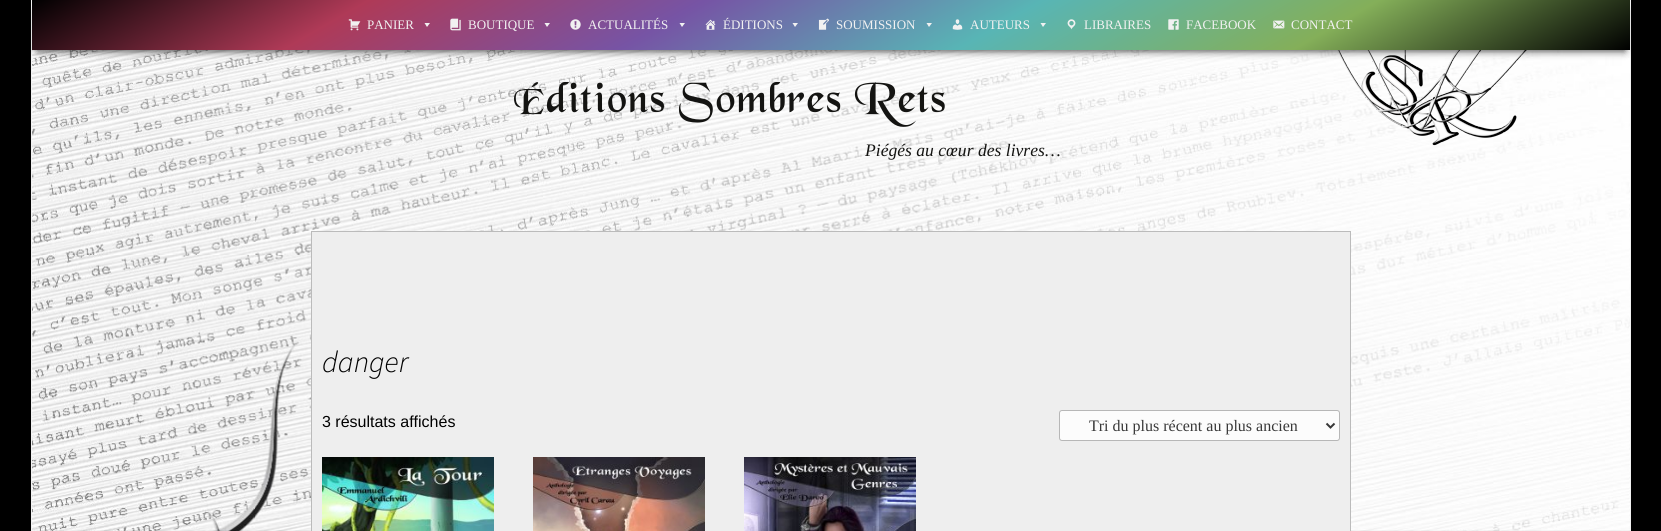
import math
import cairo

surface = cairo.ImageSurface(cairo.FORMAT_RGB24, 1661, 531)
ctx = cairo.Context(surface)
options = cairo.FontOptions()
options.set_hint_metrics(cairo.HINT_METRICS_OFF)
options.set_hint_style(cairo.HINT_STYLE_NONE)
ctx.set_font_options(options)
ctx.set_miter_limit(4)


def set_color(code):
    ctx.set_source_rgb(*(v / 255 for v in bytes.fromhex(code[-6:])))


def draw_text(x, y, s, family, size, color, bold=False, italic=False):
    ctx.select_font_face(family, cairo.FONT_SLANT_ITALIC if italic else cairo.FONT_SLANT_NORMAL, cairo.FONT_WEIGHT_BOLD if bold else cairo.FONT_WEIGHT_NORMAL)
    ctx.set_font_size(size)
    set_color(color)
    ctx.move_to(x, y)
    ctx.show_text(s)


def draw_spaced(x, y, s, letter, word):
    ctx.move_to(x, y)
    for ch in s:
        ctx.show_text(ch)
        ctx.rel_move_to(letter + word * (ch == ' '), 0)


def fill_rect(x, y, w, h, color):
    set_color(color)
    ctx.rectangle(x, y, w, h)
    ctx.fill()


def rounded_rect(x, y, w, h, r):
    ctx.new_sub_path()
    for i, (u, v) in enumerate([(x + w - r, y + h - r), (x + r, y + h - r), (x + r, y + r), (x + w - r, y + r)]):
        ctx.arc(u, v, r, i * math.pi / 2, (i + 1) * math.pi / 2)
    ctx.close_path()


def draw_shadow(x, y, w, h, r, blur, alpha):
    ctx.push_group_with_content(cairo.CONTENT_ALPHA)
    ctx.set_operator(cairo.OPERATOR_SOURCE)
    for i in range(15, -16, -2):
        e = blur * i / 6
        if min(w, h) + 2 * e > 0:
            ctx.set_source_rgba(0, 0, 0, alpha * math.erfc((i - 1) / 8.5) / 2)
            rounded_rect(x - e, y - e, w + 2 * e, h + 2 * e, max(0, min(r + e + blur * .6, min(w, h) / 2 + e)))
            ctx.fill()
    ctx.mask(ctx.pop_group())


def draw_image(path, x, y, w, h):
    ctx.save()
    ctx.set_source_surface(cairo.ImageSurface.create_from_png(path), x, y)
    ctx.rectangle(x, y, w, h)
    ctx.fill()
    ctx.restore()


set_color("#000000")
ctx.paint()
draw_image("assets/img1.png", 32, 50, 1598, 481)
fill_rect(1630, 0, 1, 531, "#f2f2f2")
fill_rect(31, 0, 1, 531, "#f2f2f2")
draw_image("assets/img11.png", 1337, 50, 190, 96)
set_color("#000000")
draw_shadow(37, 11, 1588, 40, 0, 4, 0.75)
gradient = cairo.LinearGradient(1042, 390, 620, -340)
gradient.add_color_stop_rgba(0, 0, 0, 0, 1)
gradient.add_color_stop_rgba(0.2, 0.518, 0.686, 0.349, 1)
gradient.add_color_stop_rgba(0.4, 0.345, 0.71, 0.71, 1)
gradient.add_color_stop_rgba(0.6, 0.463, 0.329, 0.647, 1)
gradient.add_color_stop_rgba(0.8, 0.686, 0.227, 0.341, 1)
gradient.add_color_stop_rgba(1, 0, 0, 0, 1)
ctx.set_source(gradient)
ctx.rectangle(32, 0, 1598, 50)
ctx.fill()
draw_image("assets/img2.png", 348, 19, 13, 12)
draw_text(367, 29, "PANIER", "Liberation Serif", 13, "#f1f1f1")
ctx.new_path()
ctx.move_to(430, 23)
ctx.line_to(427, 27)
ctx.line_to(424.5, 23)
ctx.close_path()
ctx.fill()
draw_image("assets/img3.png", 450, 18, 11, 13)
draw_text(468, 29, "BOUTIQUE", "Liberation Serif", 13, "#f1f1f1")
ctx.new_path()
ctx.move_to(550, 23)
ctx.line_to(547, 27)
ctx.line_to(544.5, 23)
ctx.close_path()
ctx.fill()
draw_image("assets/img4.png", 570, 19, 11, 11)
draw_text(588, 29, "ACTUALITÉS", "Liberation Serif", 13, "#f1f1f1")
ctx.new_path()
ctx.move_to(685, 23)
ctx.line_to(682, 27)
ctx.line_to(679.5, 23)
ctx.close_path()
ctx.fill()
draw_image("assets/img5.png", 705, 19, 11, 11)
draw_text(723, 29, "ÉDITIONS", "Liberation Serif", 13, "#f1f1f1")
ctx.new_path()
ctx.move_to(798, 23)
ctx.line_to(795, 27)
ctx.line_to(792.5, 23)
ctx.close_path()
ctx.fill()
draw_image("assets/img6.png", 818, 18, 11, 12)
draw_text(836, 29, "SOUMISSION", "Liberation Serif", 13, "#f1f1f1")
ctx.new_path()
ctx.move_to(932, 23)
ctx.line_to(929, 27)
ctx.line_to(926.5, 23)
ctx.close_path()
ctx.fill()
draw_image("assets/img7.png", 952, 19, 11, 11)
draw_text(970, 29, "AUTEURS", "Liberation Serif", 13, "#f1f1f1")
ctx.new_path()
ctx.move_to(1046, 23)
ctx.line_to(1043, 27)
ctx.line_to(1040.5, 23)
ctx.close_path()
ctx.fill()
draw_image("assets/img8.png", 1067, 19, 9, 11)
draw_text(1084, 29, "LIBRAIRES", "Liberation Serif", 13, "#f1f1f1")
draw_image("assets/img9.png", 1168, 19, 11, 11)
draw_text(1186, 29, "FACEBOOK", "Liberation Serif", 13, "#f1f1f1")
draw_image("assets/img10.png", 1273, 20, 12, 9)
draw_text(1291, 29, "CONTACT", "Liberation Serif", 13, "#f1f1f1")
ctx.select_font_face("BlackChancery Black")
ctx.set_font_size(45)
set_color("#141412")
draw_spaced(514, 112, "Éditions Sombres Rets", 1.3, 0)
draw_text(865, 156, "Piégés au cœur des livres…", "Liberation Serif", 17.6, "#141412", italic=True)
gradient = cairo.RadialGradient(0, 0, 0, 0, 0, 1)
gradient.set_matrix(cairo.Matrix(1 / 208, 0, 0, 1 / 36, -1 * 831 / 208, -1 * 593 / 36))
gradient.add_color_stop_rgba(0, 1, 1, 1, 1)
gradient.add_color_stop_rgba(1, 0.933, 0.933, 0.933, 1)
ctx.set_source(gradient)
ctx.rectangle(312, 232, 1038, 299)
ctx.fill()
ctx.rectangle(311.5, 231.5, 1039, 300)
set_color("#bbbbbb")
ctx.set_line_width(1)
ctx.stroke()
draw_text(322, 372, "danger", "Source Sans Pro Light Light", 30, "#000000", italic=True)
draw_text(322, 427, "3 résultats affichés", "Liberation Sans", 16, "#000000")
set_color("#fcfcfc")
rounded_rect(1059.5, 410.5, 280, 30, 2.5)
ctx.fill_preserve()
set_color("#b7b7b7")
ctx.stroke()
ctx.new_path()
ctx.move_to(1326.5, 423.5)
ctx.line_to(1330.5, 427.5)
ctx.line_to(1334.5, 423.5)
set_color("#383838")
ctx.set_line_width(2)
ctx.stroke()
ctx.save()
ctx.rectangle(1089, 416, 209, 19)
ctx.clip()
draw_text(1089, 431, "Tri du plus récent au plus ancien", "Liberation Serif", 16, "#383838")
ctx.restore()
draw_image("assets/img12.png", 322, 457, 172, 74)
draw_image("assets/img13.png", 533, 457, 172, 74)
draw_image("assets/img14.png", 744, 457, 172, 74)
surface.write_to_png("output.png")
